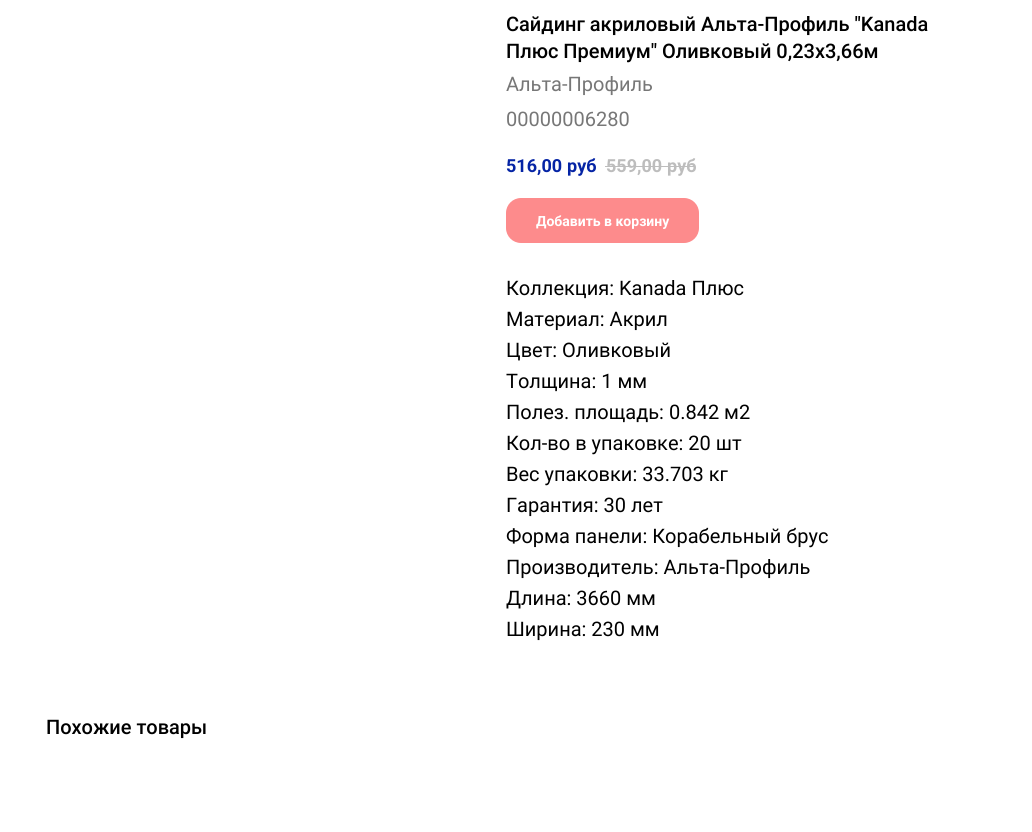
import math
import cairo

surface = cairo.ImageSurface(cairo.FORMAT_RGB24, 1032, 832)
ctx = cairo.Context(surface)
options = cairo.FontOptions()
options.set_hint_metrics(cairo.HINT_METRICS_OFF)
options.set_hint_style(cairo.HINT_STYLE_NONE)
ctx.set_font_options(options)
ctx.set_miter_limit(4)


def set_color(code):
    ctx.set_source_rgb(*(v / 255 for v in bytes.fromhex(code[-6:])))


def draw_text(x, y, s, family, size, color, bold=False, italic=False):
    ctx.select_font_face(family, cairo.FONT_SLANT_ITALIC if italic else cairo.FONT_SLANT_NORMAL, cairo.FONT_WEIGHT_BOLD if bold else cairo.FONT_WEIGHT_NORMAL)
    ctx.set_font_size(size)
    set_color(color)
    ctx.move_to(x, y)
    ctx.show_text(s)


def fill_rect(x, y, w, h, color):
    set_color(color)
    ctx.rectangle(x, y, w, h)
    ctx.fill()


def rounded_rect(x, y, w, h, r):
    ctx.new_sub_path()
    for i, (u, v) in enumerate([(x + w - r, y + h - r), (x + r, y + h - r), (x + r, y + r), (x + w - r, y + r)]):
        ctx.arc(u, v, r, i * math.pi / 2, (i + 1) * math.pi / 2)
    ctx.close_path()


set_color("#ffffff")
ctx.paint()
draw_text(506, 31, "Сайдинг акриловый Альта-Профиль \"Kanada", "Roboto Medium", 20, "#000000")
draw_text(506, 58, "Плюс Премиум\" Оливковый 0,23х3,66м", "Roboto Medium", 20, "#000000")
draw_text(506, 91, "Альта-Профиль", "Roboto", 20, "#777777")
draw_text(506, 126, "00000006280", "Roboto", 20, "#777777")
draw_text(506, 172, "516,00", "Roboto", 18, "#0524a5", bold=True)
draw_text(567, 172, "руб", "Roboto", 18, "#0524a5", bold=True)
draw_text(606, 172, "559,00", "Roboto", 18, "#bdbdbd", bold=True)
draw_text(667, 172, "руб", "Roboto", 18, "#bdbdbd", bold=True)
fill_rect(605, 166, 90, 1, "#bdbdbd")
set_color("#fd8b8c")
rounded_rect(506, 198, 193, 45, 15)
ctx.fill()
draw_text(536, 226, "Добавить в корзину", "Roboto", 14, "#ffffff", bold=True)
draw_text(506, 295, "Коллекция: Kanada Плюс", "Roboto", 20, "#000000")
draw_text(506, 326, "Материал: Акрил", "Roboto", 20, "#000000")
draw_text(506, 357, "Цвет: Оливковый", "Roboto", 20, "#000000")
draw_text(506, 388, "Толщина: 1 мм", "Roboto", 20, "#000000")
draw_text(506, 419, "Полез. площадь: 0.842 м2", "Roboto", 20, "#000000")
draw_text(506, 450, "Кол-во в упаковке: 20 шт", "Roboto", 20, "#000000")
draw_text(506, 481, "Вес упаковки: 33.703 кг", "Roboto", 20, "#000000")
draw_text(506, 512, "Гарантия: 30 лет", "Roboto", 20, "#000000")
draw_text(506, 543, "Форма панели: Корабельный брус", "Roboto", 20, "#000000")
draw_text(506, 574, "Производитель: Альта-Профиль", "Roboto", 20, "#000000")
draw_text(506, 605, "Длина: 3660 мм", "Roboto", 20, "#000000")
draw_text(506, 636, "Ширина: 230 мм", "Roboto", 20, "#000000")
draw_text(46, 734, "Похожие товары", "Roboto Medium", 20, "#000000")
surface.write_to_png("output.png")
